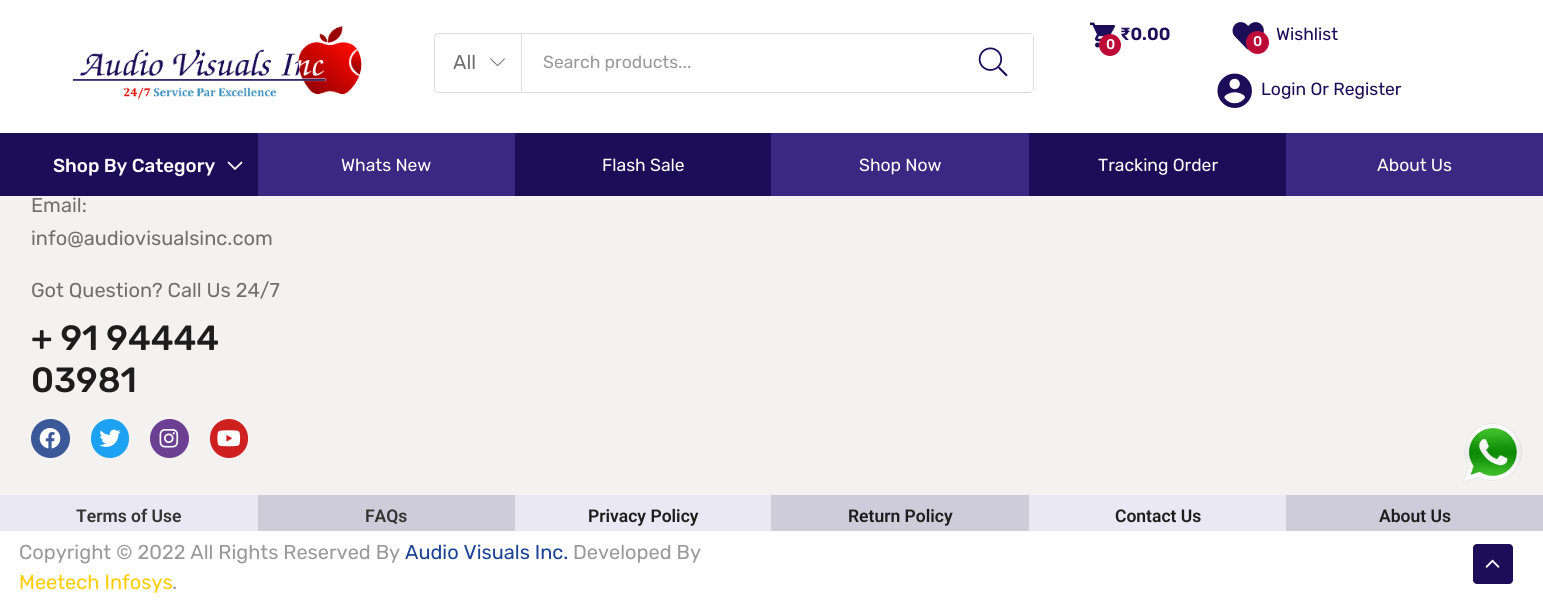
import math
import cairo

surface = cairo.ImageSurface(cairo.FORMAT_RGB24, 1543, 615)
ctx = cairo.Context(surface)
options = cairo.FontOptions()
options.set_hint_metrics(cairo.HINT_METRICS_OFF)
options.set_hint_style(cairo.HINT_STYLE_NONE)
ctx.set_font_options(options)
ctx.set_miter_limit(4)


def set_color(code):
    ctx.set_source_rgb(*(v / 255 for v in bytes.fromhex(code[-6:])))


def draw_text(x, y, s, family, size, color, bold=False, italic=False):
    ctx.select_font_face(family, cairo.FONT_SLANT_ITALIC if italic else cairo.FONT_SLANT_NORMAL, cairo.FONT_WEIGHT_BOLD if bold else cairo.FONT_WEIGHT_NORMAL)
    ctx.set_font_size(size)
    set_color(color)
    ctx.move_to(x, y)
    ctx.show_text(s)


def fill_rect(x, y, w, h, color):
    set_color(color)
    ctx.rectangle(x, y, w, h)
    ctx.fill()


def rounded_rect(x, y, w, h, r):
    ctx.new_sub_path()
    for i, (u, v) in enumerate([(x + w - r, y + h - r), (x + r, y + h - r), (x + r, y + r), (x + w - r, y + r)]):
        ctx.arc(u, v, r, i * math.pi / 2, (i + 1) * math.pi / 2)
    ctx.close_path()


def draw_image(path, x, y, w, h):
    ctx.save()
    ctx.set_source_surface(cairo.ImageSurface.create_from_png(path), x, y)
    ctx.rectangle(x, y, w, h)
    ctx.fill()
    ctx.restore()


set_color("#ffffff")
ctx.paint()
draw_image("assets/img1.png", 72, 25, 290, 75)
rounded_rect(434.5, 33.5, 599, 59, 4.5)
set_color("#dcdcdc")
ctx.set_line_width(1)
ctx.stroke()
fill_rect(521, 34, 1, 57, "#dcdcdc")
draw_text(453, 69, "All", "Rubik", 20, "#707070")
draw_image("assets/img2.png", 490, 58, 15, 9)
draw_text(543, 68, "Search products...", "Rubik", 17.5, "#999999")
fill_rect(1030, 34, 3, 57, "#ffffff")
draw_image("assets/img3.png", 978, 47, 30, 30)
draw_text(1120, 40, "₹0.00", "Rubik SemiBold", 17.5, "#1b0d58")
draw_image("assets/img4.png", 1090, 22, 25, 26)
set_color("#bd0938")
ctx.arc(1110, 45, 11, 0, 2 * math.pi)
ctx.fill()
draw_text(1106, 49, "0", "Rubik Medium", 14, "#ffffff")
draw_image("assets/img5.png", 1232, 22, 32, 28)
draw_text(1276, 40, "Wishlist", "Rubik", 17.5, "#1b0d58")
set_color("#bd0938")
ctx.new_path()
ctx.arc(1257.5, 42.5, 11.5, 0, 2 * math.pi)
ctx.fill()
draw_text(1253, 46, "0", "Rubik Medium", 14, "#ffffff")
draw_image("assets/img6.png", 1217, 73, 35, 35)
draw_text(1261, 95, "Login Or Register", "Rubik", 17.5, "#1b0d58")
fill_rect(0, 133, 258, 63, "#1b0d58")
draw_text(53, 172, "Shop By Category", "Rubik Medium", 18.75, "#ffffff")
draw_image("assets/img7.png", 227, 161, 16, 9)
fill_rect(258, 133, 257, 63, "#3a2983")
draw_text(341, 171, "Whats New", "Rubik", 17.5, "#ffffff")
fill_rect(515, 133, 256, 63, "#1b0d58")
draw_text(602, 171, "Flash Sale", "Rubik", 17.5, "#ffffff")
fill_rect(771, 133, 258, 63, "#3a2983")
draw_text(859, 171, "Shop Now", "Rubik", 17.5, "#ffffff")
fill_rect(1029, 133, 257, 63, "#1b0d58")
draw_text(1098, 171, "Tracking Order", "Rubik", 17.5, "#ffffff")
fill_rect(1286, 133, 257, 63, "#3a2983")
draw_text(1377, 171, "About Us", "Rubik", 17.5, "#ffffff")
fill_rect(0, 196, 1543, 299, "#f4f1f1")
draw_text(31, 212, "Email:", "Rubik", 20, "#707070")
draw_text(31, 245, "info@audiovisualsinc.com", "Rubik", 20, "#707070")
draw_text(31, 297, "Got Question? Call Us 24/7", "Rubik", 20, "#707070")
draw_text(31, 350, "+ 91 94444", "Rubik Medium", 35, "#1d1d1d")
draw_text(31, 392, "03981", "Rubik Medium", 35, "#1d1d1d")
set_color("#3b5998")
ctx.new_path()
ctx.arc(50.5, 438.5, 19.5, 0, 2 * math.pi)
ctx.fill()
draw_image("assets/img8.png", 39, 428, 22, 21)
set_color("#1da1f2")
rounded_rect(91, 419, 38, 39, 19)
ctx.fill()
draw_image("assets/img9.png", 99, 429, 22, 18)
set_color("#6b4092")
ctx.arc(169.5, 438.5, 19.5, 0, 2 * math.pi)
ctx.fill()
draw_image("assets/img10.png", 159, 429, 20, 19)
set_color("#cd201f")
rounded_rect(210, 419, 38, 39, 19)
ctx.fill()
draw_image("assets/img11.png", 217, 430, 24, 17)
draw_image("assets/img12.png", 1463, 423, 59, 59)
fill_rect(0, 495, 258, 36, "#eae8f2")
draw_text(76, 522, "Terms of Use", "Roboto SemiBold", 17.5, "#333333")
fill_rect(258, 495, 257, 36, "#cecbda")
draw_text(365, 522, "FAQs", "Roboto SemiBold", 17.5, "#333333")
fill_rect(515, 495, 256, 36, "#eae8f2")
draw_text(588, 522, "Privacy Policy", "Roboto SemiBold", 17.5, "#1d1d1d")
fill_rect(771, 495, 258, 36, "#cecbda")
draw_text(848, 522, "Return Policy", "Roboto SemiBold", 17.5, "#1d1d1d")
fill_rect(1029, 495, 257, 36, "#eae8f2")
draw_text(1115, 522, "Contact Us", "Roboto SemiBold", 17.5, "#1d1d1d")
fill_rect(1286, 495, 257, 36, "#cecbda")
draw_text(1379, 522, "About Us", "Roboto SemiBold", 17.5, "#1d1d1d")
draw_text(19, 559, "Copyright © 2022 All Rights Reserved By", "Rubik", 20, "#999999")
draw_text(405, 559, "Audio Visuals Inc.", "Rubik", 20, "#1b4293")
draw_text(573, 559, "Developed By", "Rubik", 20, "#999999")
draw_text(19, 589, "Meetech Infosys", "Rubik", 20, "#ffcc00")
draw_text(172, 589, ".", "Rubik", 20, "#999999")
set_color("#1b0d58")
rounded_rect(1473, 544, 40, 40, 4)
ctx.fill()
draw_image("assets/img13.png", 1485, 559, 15, 9)
surface.write_to_png("output.png")
